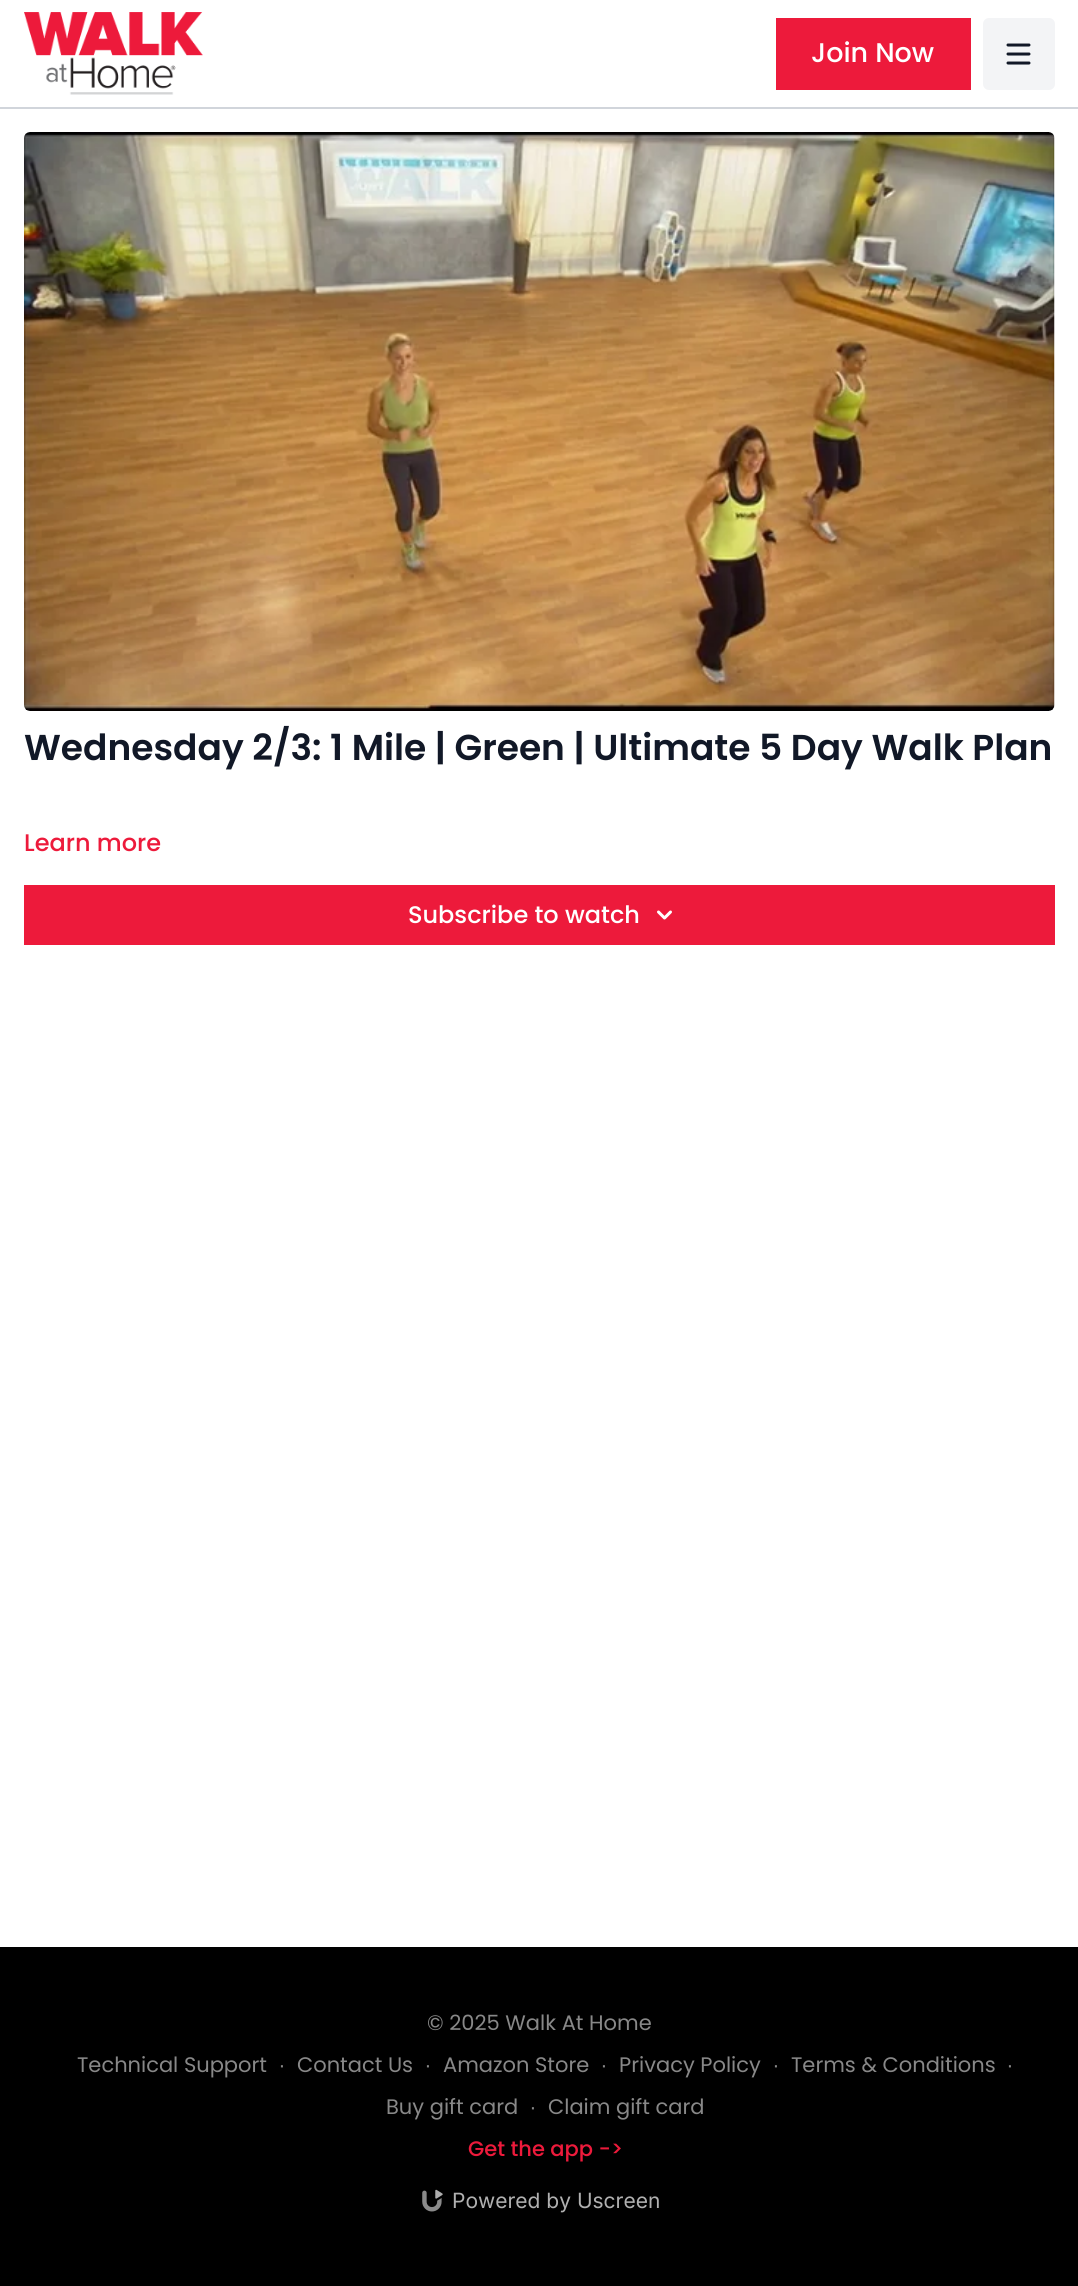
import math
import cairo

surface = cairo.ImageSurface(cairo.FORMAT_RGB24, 1078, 2286)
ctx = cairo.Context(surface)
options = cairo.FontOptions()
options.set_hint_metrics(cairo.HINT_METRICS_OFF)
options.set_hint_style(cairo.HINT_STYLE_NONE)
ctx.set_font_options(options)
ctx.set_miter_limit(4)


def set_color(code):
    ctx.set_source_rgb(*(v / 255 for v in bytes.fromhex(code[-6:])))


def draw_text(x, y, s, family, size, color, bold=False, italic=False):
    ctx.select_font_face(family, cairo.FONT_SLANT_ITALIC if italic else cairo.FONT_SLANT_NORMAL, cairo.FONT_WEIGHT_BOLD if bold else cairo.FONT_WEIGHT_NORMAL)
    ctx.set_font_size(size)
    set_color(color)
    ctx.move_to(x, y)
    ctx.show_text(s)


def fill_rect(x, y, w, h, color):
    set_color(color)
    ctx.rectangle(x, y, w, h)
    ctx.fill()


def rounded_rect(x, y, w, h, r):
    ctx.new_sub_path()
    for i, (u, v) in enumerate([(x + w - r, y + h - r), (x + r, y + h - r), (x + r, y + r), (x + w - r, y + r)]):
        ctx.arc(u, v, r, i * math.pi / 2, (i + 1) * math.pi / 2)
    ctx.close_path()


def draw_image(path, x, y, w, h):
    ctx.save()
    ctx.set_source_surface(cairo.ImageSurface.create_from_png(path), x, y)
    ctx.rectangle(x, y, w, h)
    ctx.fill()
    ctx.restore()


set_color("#ffffff")
ctx.paint()
fill_rect(0, 107, 1078, 2, "#d1d5db")
draw_image("assets/img1.png", 24, 12, 179, 83)
fill_rect(776, 18, 195, 72, "#ed1a3b")
draw_text(811, 62, "Join Now", "Poppins Medium", 27, "#ffffff")
set_color("#f3f4f6")
rounded_rect(983, 18, 72, 72, 6)
ctx.fill()
draw_image("assets/img2.png", 1006, 43, 25, 22)
draw_image("assets/img3.png", 24, 132, 1031, 579)
draw_text(24, 760, "Wednesday 2/3: 1 Mile | Green | Ultimate 5 Day Walk Plan", "Poppins SemiBold", 36, "#111827")
draw_text(24, 851, "Learn more", "Poppins Medium", 24, "#ed1a3b")
fill_rect(24, 885, 1031, 60, "#ed1a3b")
draw_text(408, 923, "Subscribe to watch", "Poppins Medium", 24, "#ffffff")
draw_image("assets/img4.png", 657, 910, 15, 10)
fill_rect(0, 1947, 1078, 339, "#000000")
draw_text(427, 2030, "© 2025 Walk At Home", "Poppins", 21, "#888888")
draw_text(77, 2072, "Technical Support", "Poppins", 21, "#888888")
draw_text(279, 2072, "∙", "Liberation Sans", 21, "#888888")
draw_text(297, 2072, "Contact Us", "Poppins", 21, "#888888")
draw_text(425, 2072, "∙", "Liberation Sans", 21, "#888888")
draw_text(443, 2072, "Amazon Store", "Poppins", 21, "#888888")
draw_text(601, 2072, "∙", "Liberation Sans", 21, "#888888")
draw_text(619, 2072, "Privacy Policy", "Poppins", 21, "#888888")
draw_text(773, 2072, "∙", "Liberation Sans", 21, "#888888")
draw_text(791, 2072, "Terms & Conditions", "Poppins", 21, "#888888")
draw_text(1007, 2072, "∙", "Liberation Sans", 21, "#888888")
draw_text(386, 2114, "Buy gift card", "Poppins", 21, "#888888")
draw_text(530, 2114, "∙", "Liberation Sans", 21, "#888888")
draw_text(548, 2114, "Claim gift card", "Poppins", 21, "#888888")
draw_text(468, 2156, "Get the app ->", "Poppins Medium", 21, "#ed1a3b")
draw_image("assets/img5.png", 422, 2189, 21, 23)
draw_text(452, 2208, "Powered by Uscreen", "Inter", 21, "#b0b0b0")
surface.write_to_png("output.png")
